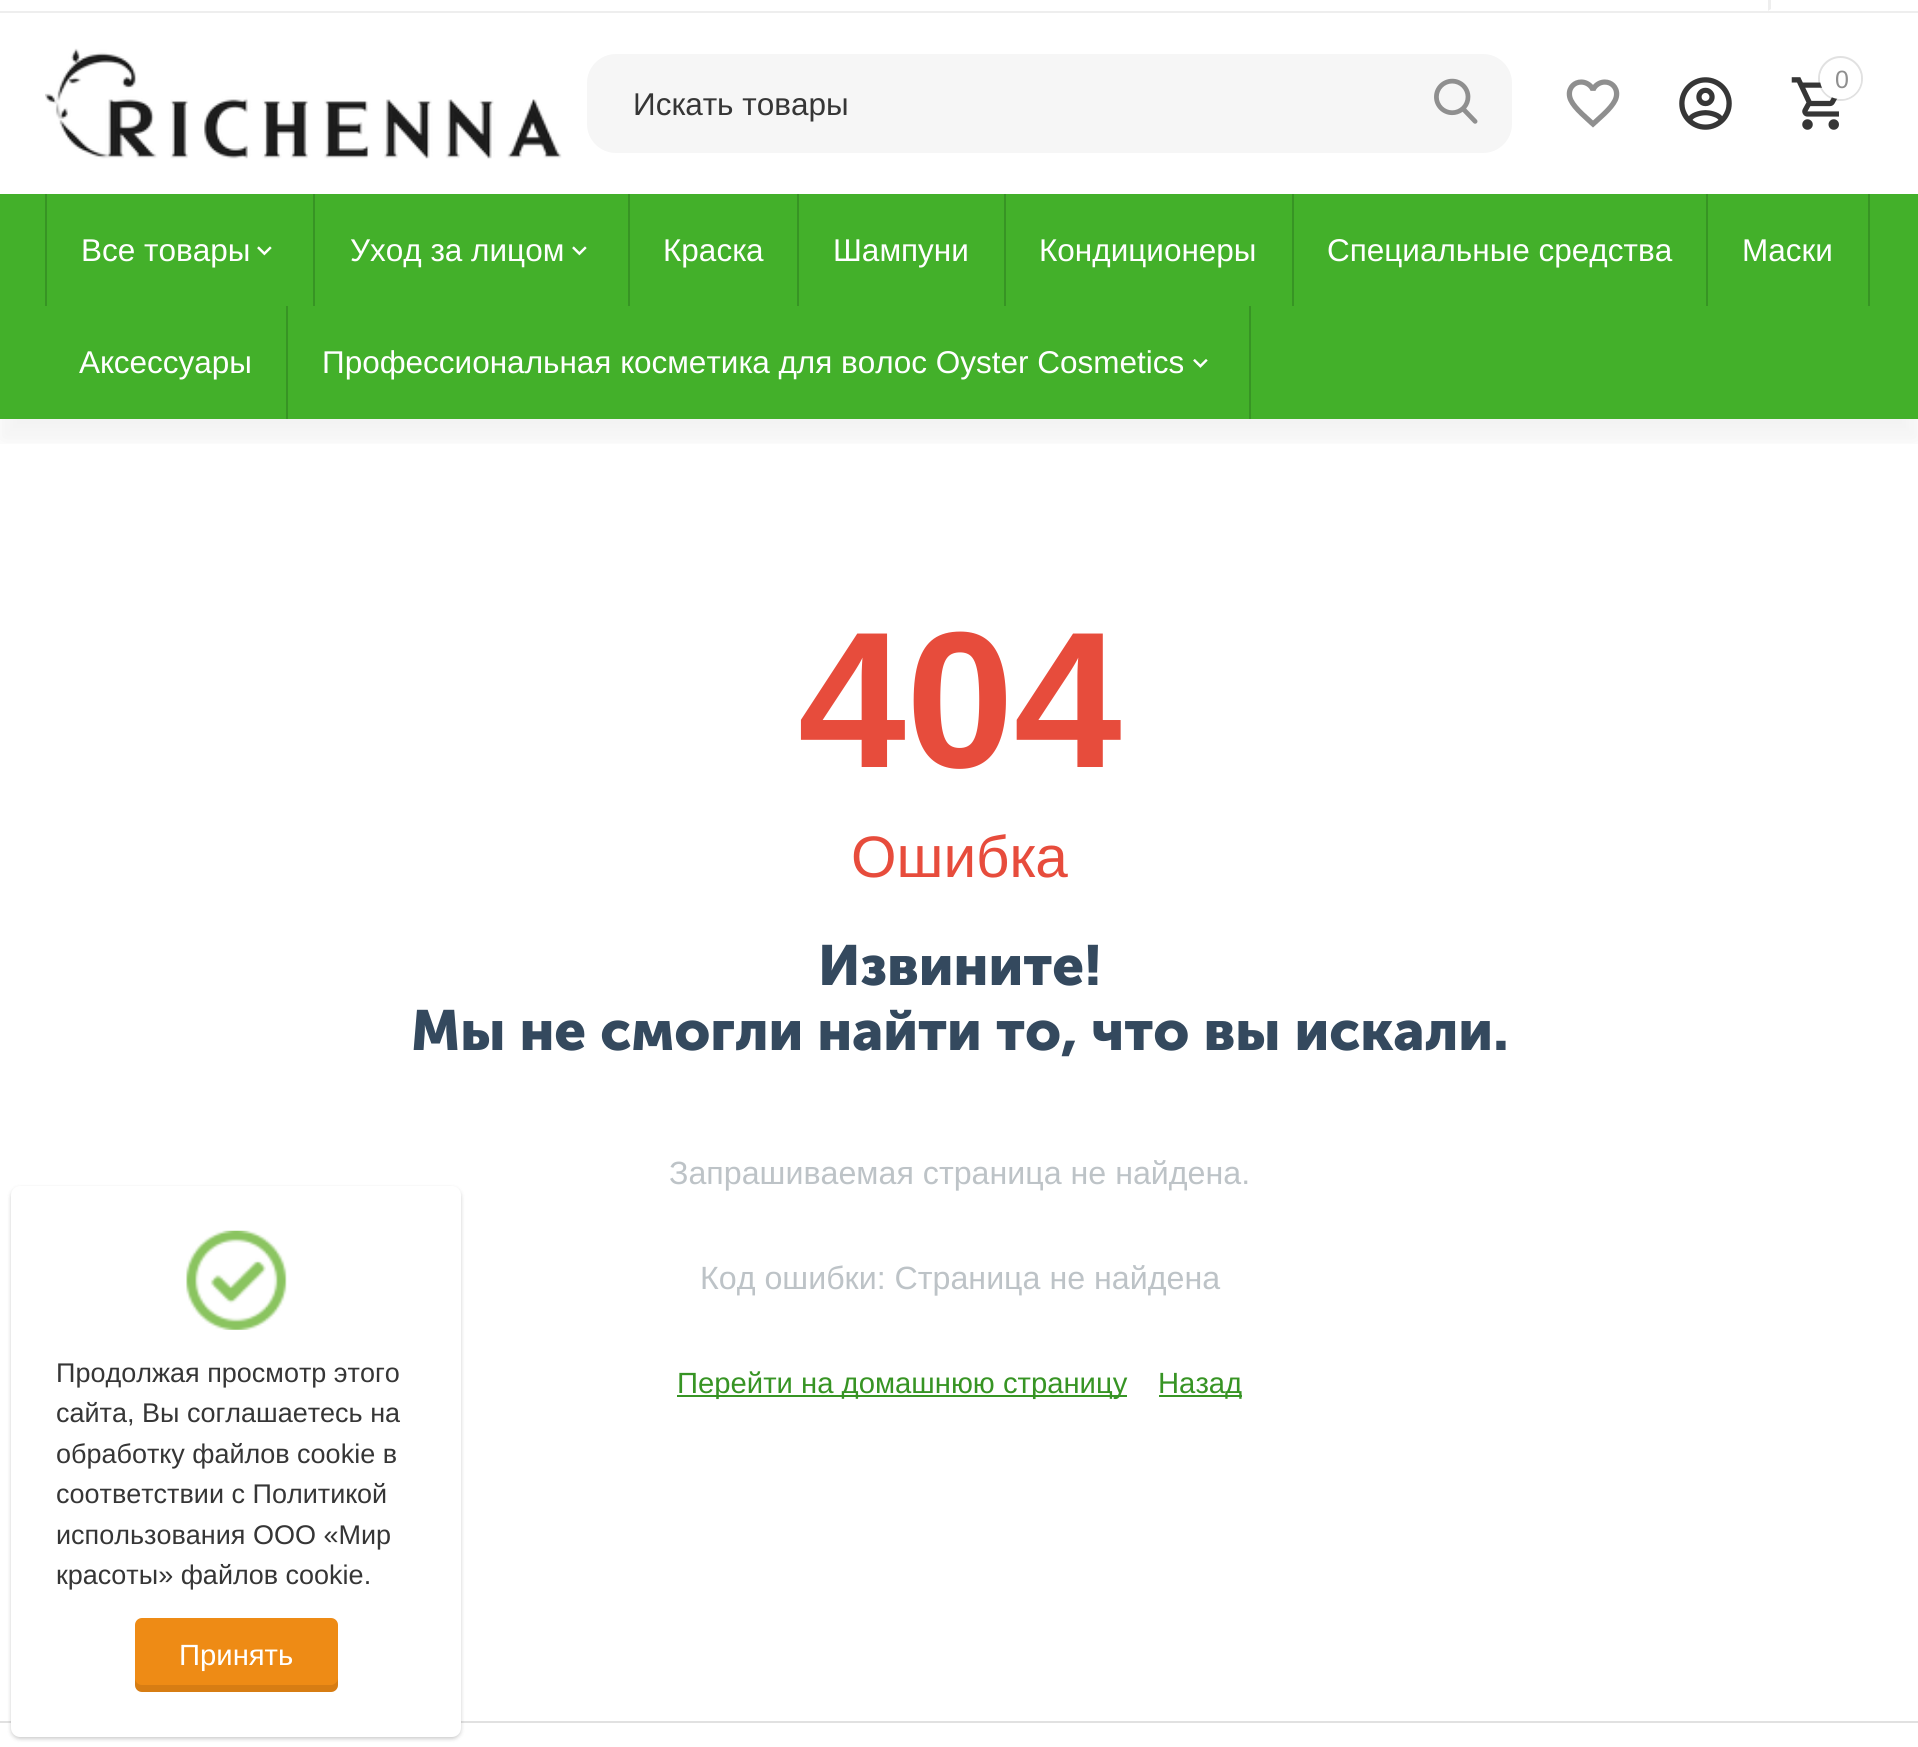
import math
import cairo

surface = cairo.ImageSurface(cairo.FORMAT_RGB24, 1918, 1747)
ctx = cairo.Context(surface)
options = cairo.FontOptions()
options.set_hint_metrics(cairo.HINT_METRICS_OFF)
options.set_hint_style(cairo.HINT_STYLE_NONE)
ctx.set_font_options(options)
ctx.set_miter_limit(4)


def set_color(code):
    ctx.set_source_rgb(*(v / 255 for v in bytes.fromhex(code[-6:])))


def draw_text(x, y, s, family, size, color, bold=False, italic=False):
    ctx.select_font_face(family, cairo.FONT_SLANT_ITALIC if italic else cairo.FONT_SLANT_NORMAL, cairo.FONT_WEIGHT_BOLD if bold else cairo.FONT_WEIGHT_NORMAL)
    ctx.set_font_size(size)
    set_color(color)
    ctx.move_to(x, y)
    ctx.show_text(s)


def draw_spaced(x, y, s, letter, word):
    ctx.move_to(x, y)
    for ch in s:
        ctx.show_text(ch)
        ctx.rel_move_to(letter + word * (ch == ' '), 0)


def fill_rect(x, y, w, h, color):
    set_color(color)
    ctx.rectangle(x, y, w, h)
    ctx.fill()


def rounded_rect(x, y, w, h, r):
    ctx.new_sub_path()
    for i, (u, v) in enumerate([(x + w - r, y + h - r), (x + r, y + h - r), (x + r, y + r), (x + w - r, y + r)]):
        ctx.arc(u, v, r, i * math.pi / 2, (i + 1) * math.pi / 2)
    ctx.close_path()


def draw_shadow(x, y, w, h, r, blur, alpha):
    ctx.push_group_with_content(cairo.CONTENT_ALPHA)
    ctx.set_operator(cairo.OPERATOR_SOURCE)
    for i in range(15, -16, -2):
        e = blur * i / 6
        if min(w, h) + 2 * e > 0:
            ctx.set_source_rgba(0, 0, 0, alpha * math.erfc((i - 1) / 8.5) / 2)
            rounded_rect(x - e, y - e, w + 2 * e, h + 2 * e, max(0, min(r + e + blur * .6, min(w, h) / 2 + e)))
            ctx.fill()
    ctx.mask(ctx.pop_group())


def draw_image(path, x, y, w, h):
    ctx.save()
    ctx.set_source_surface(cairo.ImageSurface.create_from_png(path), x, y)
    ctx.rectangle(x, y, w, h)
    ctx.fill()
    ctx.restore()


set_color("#ffffff")
ctx.paint()
fill_rect(0, 11, 1918, 2, "#eeeeee")
ctx.new_path()
ctx.move_to(1768, 11)
ctx.line_to(1768, -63)
ctx.line_to(1771, -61)
ctx.line_to(1771, 9)
ctx.close_path()
ctx.fill()
ctx.save()
ctx.rectangle(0, 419, 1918, 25)
ctx.clip()
set_color("#000000")
draw_shadow(0, 36, 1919, 405, 0, 11, 0.05)
ctx.restore()
draw_image("assets/img1.png", 45, 48, 517, 111)
draw_image("assets/img2.png", 1566, 79, 54, 49)
draw_image("assets/img3.png", 1679, 77, 53, 53)
draw_image("assets/img4.png", 1791, 77, 48, 53)
ctx.arc(1840.5, 78.5, 21.5, 0, 2 * math.pi)
ctx.set_source_rgba(0.212, 0.212, 0.212, 0.15)
ctx.stroke()
set_color("#ffffff")
rounded_rect(1820, 59, 41, 40, 20)
ctx.fill()
ctx.select_font_face("Liberation Sans")
ctx.set_font_size(25)
set_color("#8f8f8f")
draw_spaced(1835, 88, "0", -2, 0)
set_color("#f6f6f6")
rounded_rect(587, 54, 925, 99, 29)
ctx.fill()
draw_text(633, 115, "Искать товары", "Liberation Sans", 31.5, "#363636")
draw_image("assets/img5.png", 1434, 78, 44, 46)
fill_rect(0, 194, 1918, 225, "#43b02a")
fill_rect(313, 194, 2, 112, "#379424")
fill_rect(45, 194, 2, 112, "#379424")
draw_text(81, 261, "Все товары", "Liberation Sans", 31.5, "#ffffff")
draw_image("assets/img6.png", 257, 246, 15, 10)
fill_rect(628, 194, 2, 112, "#379424")
draw_text(350, 261, "Уход за лицом", "Liberation Sans", 31.5, "#ffffff")
draw_image("assets/img6.png", 572, 246, 15, 10)
fill_rect(797, 194, 2, 112, "#379424")
draw_text(663, 261, "Краска", "Liberation Sans", 31.5, "#ffffff")
fill_rect(1004, 194, 2, 112, "#379424")
draw_text(833, 261, "Шампуни", "Liberation Sans", 31.5, "#ffffff")
fill_rect(1292, 194, 2, 112, "#379424")
draw_text(1039, 261, "Кондиционеры", "Liberation Sans", 31.5, "#ffffff")
fill_rect(1706, 194, 2, 112, "#379424")
draw_text(1327, 261, "Специальные средства", "Liberation Sans", 31.5, "#ffffff")
fill_rect(1868, 194, 2, 112, "#379424")
draw_text(1742, 261, "Маски", "Liberation Sans", 31.5, "#ffffff")
fill_rect(286, 306, 2, 113, "#379424")
draw_text(79, 373, "Аксессуары", "Liberation Sans", 31.5, "#ffffff")
fill_rect(1249, 306, 2, 113, "#379424")
draw_text(322, 373, "Профессиональная косметика для волос Oyster Cosmetics", "Liberation Sans", 31.5, "#ffffff")
draw_image("assets/img7.png", 1193, 359, 15, 9)
draw_text(798, 767, "404", "Liberation Sans", 194, "#e74c3c", bold=True)
draw_text(851, 877, "Ошибка", "Liberation Sans", 58.5, "#e74c3c")
draw_text(818, 985, "Извините!", "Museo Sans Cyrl", 56.25, "#34495e", bold=True)
draw_text(411, 1050, "Мы не смогли найти то, что вы искали.", "Museo Sans Cyrl", 56.25, "#34495e", bold=True)
draw_text(669, 1184, "Запрашиваемая страница не найдена.", "Liberation Sans", 32.2, "#bdc3c7")
draw_text(700, 1289, "Код ошибки: Страница не найдена", "Liberation Sans", 32.2, "#bdc3c7")
fill_rect(677, 1395, 450, 2, "#379424")
draw_text(677, 1393, "Перейти на домашнюю страницу", "Liberation Sans", 29.25, "#379424")
fill_rect(1159, 1395, 83, 2, "#379424")
draw_text(1158, 1393, "Назад", "Liberation Sans", 29.25, "#379424")
fill_rect(0, 1721, 1918, 2, "#e1e1e1")
set_color("#000000")
draw_shadow(11, 1188, 450, 551, 9, 2, 0.2)
set_color("#ffffff")
rounded_rect(11, 1186, 450, 551, 9)
ctx.fill()
draw_image("assets/img8.png", 186, 1230, 101, 100)
draw_text(56, 1382, "Продолжая просмотр этого", "Liberation Sans", 27, "#363636")
draw_text(56, 1422, "сайта, Вы соглашаетесь на", "Liberation Sans", 27, "#363636")
draw_text(56, 1463, "обработку файлов cookie в", "Liberation Sans", 27, "#363636")
draw_text(56, 1503, "соответствии с Политикой", "Liberation Sans", 27, "#363636")
draw_text(56, 1544, "использования ООО «Мир", "Liberation Sans", 27, "#363636")
draw_text(56, 1584, "красоты» файлов cookie.", "Liberation Sans", 27, "#363636")
set_color("#ee8b15")
rounded_rect(135, 1618, 203, 74, 7)
ctx.fill()
ctx.set_source_rgba(0, 0, 0, 0.1)
ctx.new_path()
ctx.move_to(135, 1678)
ctx.line_to(135, 1685)
ctx.curve_to(135, 1689, 138, 1692, 142, 1692)
ctx.line_to(331, 1692)
ctx.curve_to(335, 1692, 338, 1689, 338, 1685)
ctx.line_to(338, 1678)
ctx.curve_to(338, 1682, 334, 1685, 331, 1685)
ctx.line_to(142, 1685)
ctx.curve_to(138, 1685, 135, 1682, 135, 1678)
ctx.close_path()
ctx.fill()
draw_text(179, 1665, "Принять", "Liberation Sans", 29.25, "#ffffff")
surface.write_to_png("output.png")
